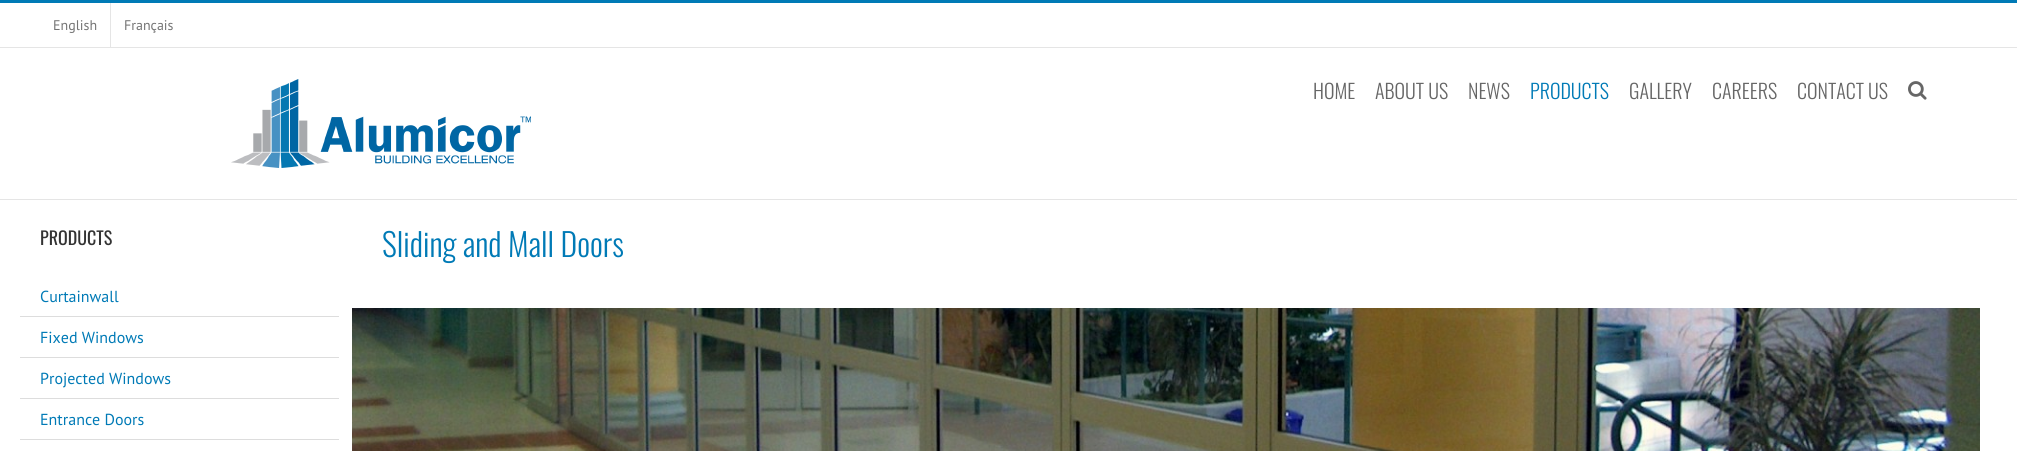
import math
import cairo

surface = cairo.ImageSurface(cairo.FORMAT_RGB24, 2017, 451)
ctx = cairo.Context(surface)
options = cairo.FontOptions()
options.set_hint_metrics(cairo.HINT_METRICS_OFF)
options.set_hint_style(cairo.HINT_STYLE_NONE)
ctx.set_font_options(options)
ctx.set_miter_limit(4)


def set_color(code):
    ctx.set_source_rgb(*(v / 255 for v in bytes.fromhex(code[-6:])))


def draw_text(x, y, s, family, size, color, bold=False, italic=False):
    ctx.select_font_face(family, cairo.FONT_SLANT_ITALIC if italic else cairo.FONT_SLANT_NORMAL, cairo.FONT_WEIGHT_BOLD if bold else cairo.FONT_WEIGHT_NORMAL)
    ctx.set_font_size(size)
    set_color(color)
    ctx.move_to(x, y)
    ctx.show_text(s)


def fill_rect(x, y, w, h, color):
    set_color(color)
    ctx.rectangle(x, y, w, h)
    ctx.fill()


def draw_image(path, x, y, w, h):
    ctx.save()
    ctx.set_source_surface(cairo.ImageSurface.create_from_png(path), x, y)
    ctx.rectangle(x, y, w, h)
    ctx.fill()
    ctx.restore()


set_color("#ffffff")
ctx.paint()
fill_rect(0, 0, 2017, 3, "#007ab6")
fill_rect(0, 47, 2017, 1, "#e5e5e5")
draw_text(53, 30, "English", "PT Sans", 14, "#747474")
fill_rect(110, 3, 1, 44, "#e5e5e5")
draw_text(124, 30, "Français", "PT Sans", 14, "#747474")
fill_rect(0, 199, 2017, 1, "#e5e5e5")
draw_image("assets/img1.png", 231, 79, 300, 89)
draw_text(1313, 99, "HOME", "Oswald Light", 20, "#666666")
draw_text(1375, 99, "ABOUT US", "Oswald Light", 20, "#666666")
draw_text(1468, 99, "NEWS", "Oswald Light", 20, "#666666")
draw_text(1530, 99, "PRODUCTS", "Oswald Light", 20, "#007ab6")
draw_text(1629, 99, "GALLERY", "Oswald Light", 20, "#666666")
draw_text(1712, 99, "CAREERS", "Oswald Light", 20, "#666666")
draw_text(1797, 99, "CONTACT US", "Oswald Light", 20, "#666666")
draw_image("assets/img2.png", 1908, 81, 19, 19)
draw_text(40, 245, "PRODUCTS", "Oswald", 18, "#333333")
fill_rect(20, 316, 319, 1, "#dddddd")
draw_text(40, 302, "Curtainwall", "PT Sans", 16, "#007ab6")
fill_rect(20, 357, 319, 1, "#dddddd")
draw_text(40, 343, "Fixed Windows", "PT Sans", 16, "#007ab6")
fill_rect(20, 398, 319, 1, "#dddddd")
draw_text(40, 384, "Projected Windows", "PT Sans", 16, "#007ab6")
fill_rect(20, 439, 319, 1, "#dddddd")
draw_text(40, 425, "Entrance Doors", "PT Sans", 16, "#007ab6")
draw_text(382, 257, "Sliding and Mall Doors", "Oswald Light", 32, "#007ab6")
draw_image("assets/img3.png", 352, 308, 1628, 143)
surface.write_to_png("output.png")
